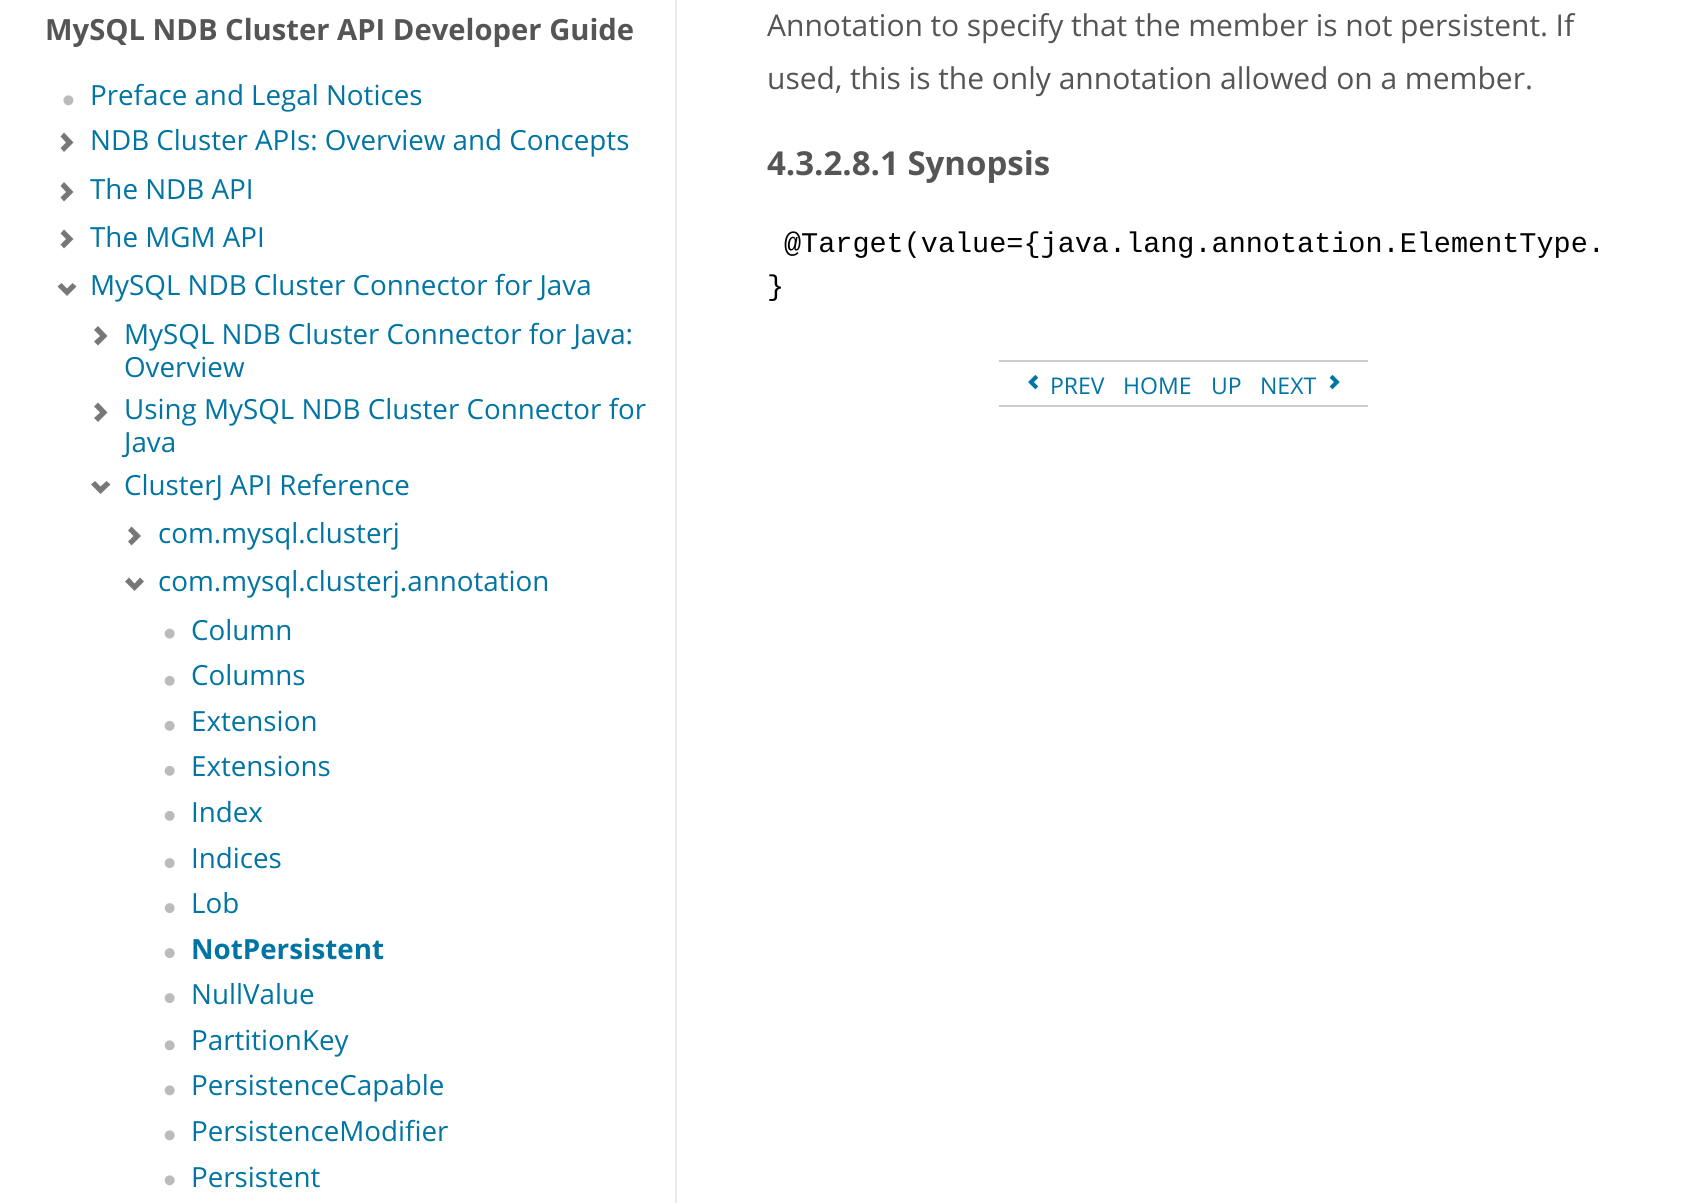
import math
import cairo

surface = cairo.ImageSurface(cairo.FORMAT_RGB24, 1688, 1203)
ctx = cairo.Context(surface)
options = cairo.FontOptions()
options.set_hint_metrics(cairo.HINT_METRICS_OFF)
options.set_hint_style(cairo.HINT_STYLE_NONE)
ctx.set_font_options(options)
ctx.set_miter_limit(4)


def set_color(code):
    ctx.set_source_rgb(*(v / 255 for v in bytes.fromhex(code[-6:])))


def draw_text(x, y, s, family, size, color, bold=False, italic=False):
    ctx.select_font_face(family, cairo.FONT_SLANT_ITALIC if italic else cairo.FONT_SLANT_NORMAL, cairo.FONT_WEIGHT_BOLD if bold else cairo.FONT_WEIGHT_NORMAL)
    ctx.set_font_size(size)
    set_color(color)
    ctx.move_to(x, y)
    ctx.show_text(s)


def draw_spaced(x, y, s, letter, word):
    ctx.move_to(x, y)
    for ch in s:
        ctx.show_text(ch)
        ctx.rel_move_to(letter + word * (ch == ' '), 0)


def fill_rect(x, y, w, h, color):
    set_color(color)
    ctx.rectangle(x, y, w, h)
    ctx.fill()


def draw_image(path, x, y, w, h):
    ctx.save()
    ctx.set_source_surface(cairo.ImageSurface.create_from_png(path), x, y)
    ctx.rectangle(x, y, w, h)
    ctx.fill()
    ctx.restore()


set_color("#ffffff")
ctx.paint()
fill_rect(675, 0, 2, 1203, "#e9eaeb")
draw_text(45, 40, "MySQL NDB Cluster API Developer Guide", "Open Sans", 29.2, "#555555", bold=True)
draw_image("assets/img1.png", 63, 95, 11, 11)
draw_text(90, 105, "Preface and Legal Notices", "Open Sans", 27.75, "#0074a3")
set_color("#777777")
ctx.new_path()
ctx.move_to(64, 132.5)
ctx.line_to(60.5, 136.5)
ctx.line_to(66, 142.5)
ctx.line_to(60.5, 148)
ctx.line_to(64, 152)
ctx.line_to(73.5, 142.5)
ctx.close_path()
ctx.fill()
draw_text(90, 150, "NDB Cluster APIs: Overview and Concepts", "Open Sans", 27.75, "#0074a3")
set_color("#777777")
ctx.new_path()
ctx.move_to(64, 182)
ctx.line_to(60.5, 186)
ctx.line_to(66, 192)
ctx.line_to(60.5, 197.5)
ctx.line_to(64, 201.5)
ctx.line_to(73.5, 192)
ctx.close_path()
ctx.fill()
draw_text(90, 199, "The NDB API", "Open Sans", 27.75, "#0074a3")
set_color("#777777")
ctx.new_path()
ctx.move_to(64, 229.5)
ctx.line_to(60.5, 233.5)
ctx.line_to(66, 239)
ctx.line_to(60.5, 244.5)
ctx.line_to(64, 248.5)
ctx.line_to(73.5, 239)
ctx.close_path()
ctx.fill()
draw_text(90, 247, "The MGM API", "Open Sans", 27.75, "#0074a3")
set_color("#777777")
ctx.new_path()
ctx.move_to(72.5, 283)
ctx.line_to(67, 288.5)
ctx.line_to(61.5, 283)
ctx.line_to(57.5, 286.5)
ctx.line_to(67, 296)
ctx.line_to(76.5, 286.5)
ctx.close_path()
ctx.move_to(98, 326)
ctx.line_to(94, 330)
ctx.line_to(100, 336)
ctx.line_to(94, 341.5)
ctx.line_to(98, 345.5)
ctx.line_to(107.5, 336)
ctx.close_path()
ctx.fill()
draw_text(90, 295, "MySQL NDB Cluster Connector for Java", "Open Sans", 27.75, "#0074a3")
draw_text(124, 344, "MySQL NDB Cluster Connector for Java:", "Open Sans", 27.75, "#0074a3")
draw_text(124, 377, "Overview", "Open Sans", 27.75, "#0074a3")
set_color("#777777")
ctx.new_path()
ctx.move_to(98, 402.5)
ctx.line_to(94, 406.5)
ctx.line_to(100, 412.5)
ctx.line_to(94, 418)
ctx.line_to(98, 422)
ctx.line_to(107.5, 412.5)
ctx.close_path()
ctx.fill()
draw_text(124, 419, "Using MySQL NDB Cluster Connector for", "Open Sans", 27.75, "#0074a3")
draw_text(124, 452, "Java", "Open Sans", 27.75, "#0074a3")
set_color("#777777")
ctx.new_path()
ctx.move_to(106.5, 481)
ctx.line_to(100.5, 486.5)
ctx.line_to(95, 481)
ctx.line_to(91, 484.5)
ctx.line_to(100.5, 494)
ctx.line_to(110.5, 484.5)
ctx.close_path()
ctx.fill()
draw_text(124, 495, "ClusterJ API Reference", "Open Sans", 27.75, "#0074a3")
set_color("#777777")
ctx.new_path()
ctx.move_to(131.5, 526.5)
ctx.line_to(128, 530.5)
ctx.line_to(133.5, 536)
ctx.line_to(128, 541.5)
ctx.line_to(131.5, 545.5)
ctx.line_to(141, 536)
ctx.close_path()
ctx.fill()
draw_text(158, 543, "com.mysql.clusterj", "Open Sans", 27.75, "#0074a3")
set_color("#777777")
ctx.new_path()
ctx.move_to(140, 577.5)
ctx.line_to(134.5, 583.5)
ctx.line_to(129, 577.5)
ctx.line_to(125, 581.5)
ctx.line_to(134.5, 591)
ctx.line_to(144, 581.5)
ctx.close_path()
ctx.fill()
draw_text(158, 591, "com.mysql.clusterj.annotation", "Open Sans", 27.75, "#0074a3")
draw_image("assets/img2.png", 164, 628, 11, 11)
draw_text(191, 640, "Column", "Open Sans", 27.75, "#0074a3")
draw_image("assets/img3.png", 164, 675, 11, 11)
draw_text(191, 685, "Columns", "Open Sans", 27.75, "#0074a3")
draw_image("assets/img3.png", 164, 720, 11, 11)
draw_text(191, 731, "Extension", "Open Sans", 27.75, "#0074a3")
draw_image("assets/img3.png", 164, 765, 11, 11)
draw_text(191, 776, "Extensions", "Open Sans", 27.75, "#0074a3")
draw_image("assets/img3.png", 164, 810, 11, 11)
draw_text(191, 822, "Index", "Open Sans", 27.75, "#0074a3")
draw_image("assets/img4.png", 164, 858, 11, 10)
draw_text(191, 868, "Indices", "Open Sans", 27.75, "#0074a3")
draw_image("assets/img4.png", 164, 903, 11, 10)
draw_text(191, 913, "Lob", "Open Sans", 27.75, "#0074a3")
draw_image("assets/img4.png", 164, 948, 11, 10)
draw_text(191, 959, "NotPersistent", "Open Sans", 27.75, "#0074a3", bold=True)
draw_image("assets/img4.png", 164, 993, 11, 10)
draw_text(191, 1004, "NullValue", "Open Sans", 27.75, "#0074a3")
draw_image("assets/img5.png", 164, 1040, 11, 11)
draw_text(191, 1050, "PartitionKey", "Open Sans", 27.75, "#0074a3")
draw_image("assets/img5.png", 164, 1085, 11, 11)
draw_text(191, 1095, "PersistenceCapable", "Open Sans", 27.75, "#0074a3")
draw_image("assets/img5.png", 164, 1130, 11, 11)
draw_text(191, 1141, "PersistenceModifier", "Open Sans", 27.75, "#0074a3")
draw_image("assets/img5.png", 164, 1175, 11, 11)
draw_text(191, 1187, "Persistent", "Open Sans", 27.75, "#0074a3")
ctx.set_font_size(30)
set_color("#555555")
draw_spaced(767, 36, "Annotation to specify that the member is not persistent. If", 0, -0.25)
draw_spaced(767, 89, "used, this is the only annotation allowed on a member.", 0, -0.1)
draw_text(767, 175, "4.3.2.8.1 Synopsis", "Open Sans", 33, "#555555", bold=True)
ctx.select_font_face("Liberation Mono")
ctx.set_font_size(28.5)
set_color("#000000")
draw_spaced(784, 252, "@Target(value={java.lang.annotation.ElementType.", 0, -1)
draw_text(767, 295, "}", "Liberation Mono", 28.5, "#000000")
fill_rect(999, 360, 369, 2, "#cccccc")
fill_rect(999, 405, 369, 2, "#cccccc")
draw_image("assets/img6.png", 1028, 374, 11, 16)
draw_text(1050, 394, "PREV", "Open Sans", 23, "#0074a3")
draw_text(1123, 394, "HOME", "Open Sans", 23, "#0074a3")
draw_text(1211, 394, "UP", "Open Sans", 23, "#0074a3")
draw_text(1260, 394, "NEXT", "Open Sans", 23, "#0074a3")
draw_image("assets/img7.png", 1329, 374, 11, 16)
surface.write_to_png("output.png")
